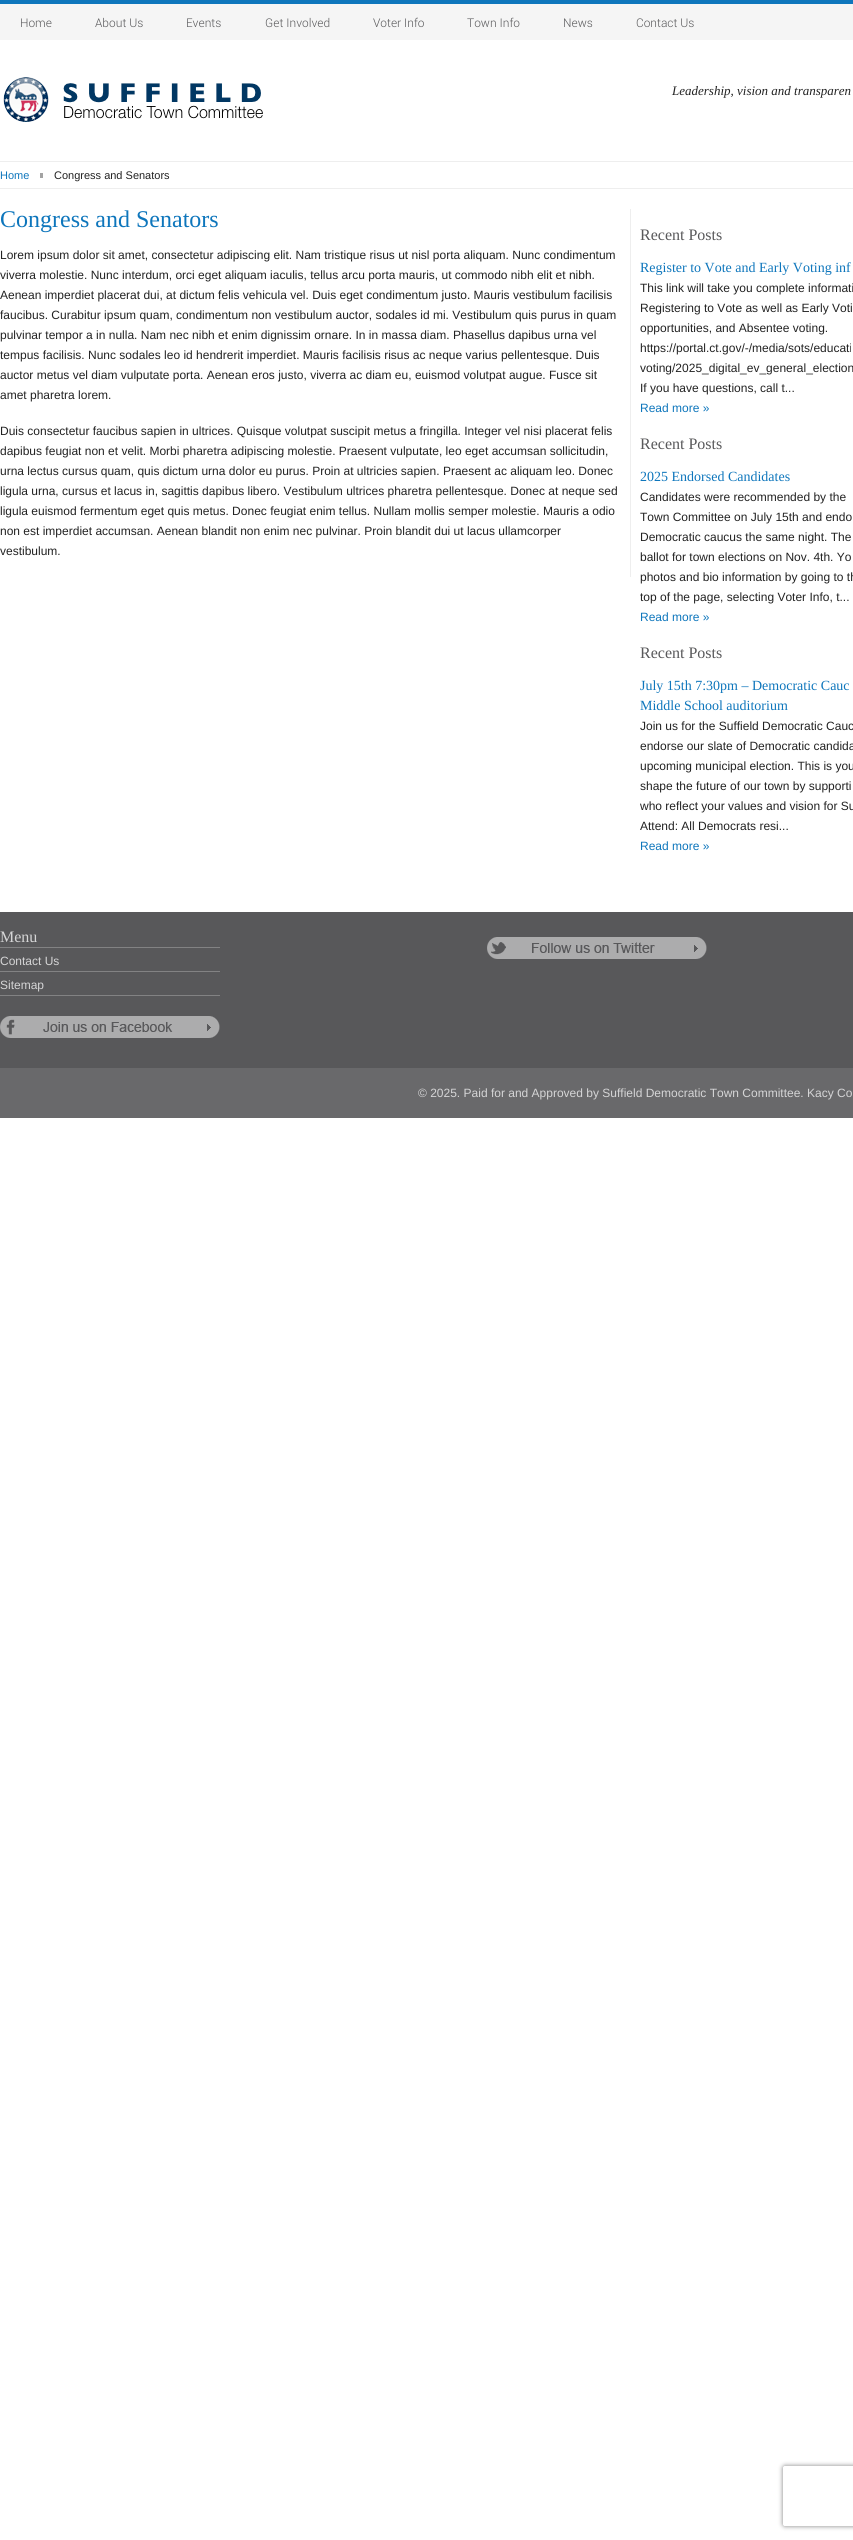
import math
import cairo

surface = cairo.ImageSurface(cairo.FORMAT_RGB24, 853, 2540)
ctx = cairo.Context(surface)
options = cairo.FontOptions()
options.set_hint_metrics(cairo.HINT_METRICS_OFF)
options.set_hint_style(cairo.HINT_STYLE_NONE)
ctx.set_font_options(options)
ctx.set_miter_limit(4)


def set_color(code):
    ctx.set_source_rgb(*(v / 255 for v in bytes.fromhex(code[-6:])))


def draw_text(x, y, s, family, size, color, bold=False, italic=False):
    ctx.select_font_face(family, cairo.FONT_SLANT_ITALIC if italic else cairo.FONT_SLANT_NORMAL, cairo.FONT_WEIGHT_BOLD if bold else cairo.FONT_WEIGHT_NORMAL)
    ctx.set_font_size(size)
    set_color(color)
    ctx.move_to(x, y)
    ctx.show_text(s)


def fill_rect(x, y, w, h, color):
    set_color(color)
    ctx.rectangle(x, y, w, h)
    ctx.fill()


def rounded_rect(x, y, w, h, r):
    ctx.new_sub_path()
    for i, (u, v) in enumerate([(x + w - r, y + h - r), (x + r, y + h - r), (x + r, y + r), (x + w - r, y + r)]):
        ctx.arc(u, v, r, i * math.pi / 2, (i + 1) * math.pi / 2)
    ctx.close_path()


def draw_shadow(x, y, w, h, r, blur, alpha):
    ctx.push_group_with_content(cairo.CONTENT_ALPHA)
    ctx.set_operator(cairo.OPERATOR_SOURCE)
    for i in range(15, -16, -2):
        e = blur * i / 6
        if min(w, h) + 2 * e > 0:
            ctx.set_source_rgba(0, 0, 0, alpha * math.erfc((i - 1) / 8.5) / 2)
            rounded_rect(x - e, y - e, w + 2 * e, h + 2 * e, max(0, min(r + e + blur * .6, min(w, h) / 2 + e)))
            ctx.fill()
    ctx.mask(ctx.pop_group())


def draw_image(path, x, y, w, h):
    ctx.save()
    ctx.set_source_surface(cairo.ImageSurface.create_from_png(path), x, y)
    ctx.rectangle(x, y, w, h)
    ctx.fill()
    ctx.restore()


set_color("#ffffff")
ctx.paint()
fill_rect(0, 0, 853, 4, "#0e76bc")
fill_rect(0, 4, 853, 36, "#f5f5f5")
draw_text(20, 27, "Home", "Roboto Light", 12, "#58585a")
draw_text(95, 27, "About Us", "Roboto Light", 12, "#58585a")
draw_text(186, 27, "Events", "Roboto Light", 12, "#58585a")
draw_text(265, 27, "Get Involved", "Roboto Light", 12, "#58585a")
draw_text(373, 27, "Voter Info", "Roboto Light", 12, "#58585a")
draw_text(467, 27, "Town Info", "Roboto Light", 12, "#58585a")
draw_text(563, 27, "News", "Roboto Light", 12, "#58585a")
draw_text(636, 27, "Contact Us", "Roboto Light", 12, "#58585a")
fill_rect(0, 161, 853, 1, "#eeeeee")
draw_image("assets/img1.png", 3, 77, 260, 45)
draw_text(672, 95, "Leadership, vision and transparen", "Liberation Serif", 13, "#222222", italic=True)
fill_rect(0, 188, 853, 1, "#eeeeee")
draw_text(0, 179, "Home", "Liberation Sans", 11, "#0e76bc")
fill_rect(40, 173, 3, 5, "#a3a3a3")
draw_text(54, 179, "Congress and Senators", "Liberation Sans", 11, "#222222")
fill_rect(630, 209, 1, 368, "#eeeeee")
draw_text(0, 227, "Congress and Senators", "Liberation Serif", 24, "#0e76bc")
draw_text(0, 259, "Lorem ipsum dolor sit amet, consectetur adipiscing elit. Nam tristique risus ut nisl porta aliquam. Nunc condimentum", "Liberation Sans", 12, "#222222")
draw_text(0, 279, "viverra molestie. Nunc interdum, orci eget aliquam iaculis, tellus arcu porta mauris, ut commodo nibh elit et nibh.", "Liberation Sans", 12, "#222222")
draw_text(0, 299, "Aenean imperdiet placerat dui, at dictum felis vehicula vel. Duis eget condimentum justo. Mauris vestibulum facilisis", "Liberation Sans", 12, "#222222")
draw_text(0, 319, "faucibus. Curabitur ipsum quam, condimentum non vestibulum auctor, sodales id mi. Vestibulum quis purus in quam", "Liberation Sans", 12, "#222222")
draw_text(0, 339, "pulvinar tempor a in nulla. Nam nec nibh et enim dignissim ornare. In in massa diam. Phasellus dapibus urna vel", "Liberation Sans", 12, "#222222")
draw_text(0, 359, "tempus facilisis. Nunc sodales leo id hendrerit imperdiet. Mauris facilisis risus ac neque varius pellentesque. Duis", "Liberation Sans", 12, "#222222")
draw_text(0, 379, "auctor metus vel diam vulputate porta. Aenean eros justo, viverra ac diam eu, euismod volutpat augue. Fusce sit", "Liberation Sans", 12, "#222222")
draw_text(0, 399, "amet pharetra lorem.", "Liberation Sans", 12, "#222222")
draw_text(0, 435, "Duis consectetur faucibus sapien in ultrices. Quisque volutpat suscipit metus a fringilla. Integer vel nisi placerat felis", "Liberation Sans", 12, "#222222")
draw_text(0, 455, "dapibus feugiat non et velit. Morbi pharetra adipiscing molestie. Praesent vulputate, leo eget accumsan sollicitudin,", "Liberation Sans", 12, "#222222")
draw_text(0, 475, "urna lectus cursus quam, quis dictum urna dolor eu purus. Proin at ultricies sapien. Praesent ac aliquam leo. Donec", "Liberation Sans", 12, "#222222")
draw_text(0, 495, "ligula urna, cursus et lacus in, sagittis dapibus libero. Vestibulum ultrices pharetra pellentesque. Donec at neque sed", "Liberation Sans", 12, "#222222")
draw_text(0, 515, "ligula euismod fermentum eget quis metus. Donec feugiat enim tellus. Nullam mollis semper molestie. Mauris a odio", "Liberation Sans", 12, "#222222")
draw_text(0, 535, "non est imperdiet accumsan. Aenean blandit non enim nec pulvinar. Proin blandit dui ut lacus ullamcorper", "Liberation Sans", 12, "#222222")
draw_text(0, 555, "vestibulum.", "Liberation Sans", 12, "#222222")
draw_text(640, 240, "Recent Posts", "Liberation Serif", 16, "#58585a")
draw_text(640, 272, "Register to Vote and Early Voting inf", "Liberation Serif", 14, "#0e76bc")
draw_text(640, 292, "This link will take you complete informati", "Liberation Sans", 12, "#222222")
draw_text(640, 312, "Registering to Vote as well as Early Voti", "Liberation Sans", 12, "#222222")
draw_text(640, 332, "opportunities, and Absentee voting.", "Liberation Sans", 12, "#222222")
draw_text(640, 352, "https://portal.ct.gov/-/media/sots/educati", "Liberation Sans", 12, "#222222")
draw_text(640, 372, "voting/2025_digital_ev_general_election", "Liberation Sans", 12, "#222222")
draw_text(640, 392, "If you have questions, call t...", "Liberation Sans", 12, "#222222")
draw_text(640, 412, "Read more »", "Liberation Sans", 12, "#0e76bc")
draw_text(640, 449, "Recent Posts", "Liberation Serif", 16, "#58585a")
draw_text(640, 481, "2025 Endorsed Candidates", "Liberation Serif", 14, "#0e76bc")
draw_text(640, 501, "Candidates were recommended by the", "Liberation Sans", 12, "#222222")
draw_text(640, 521, "Town Committee on July 15th and endo", "Liberation Sans", 12, "#222222")
draw_text(640, 541, "Democratic caucus the same night. The", "Liberation Sans", 12, "#222222")
draw_text(640, 561, "ballot for town elections on Nov. 4th. Yo", "Liberation Sans", 12, "#222222")
draw_text(640, 581, "photos and bio information by going to th", "Liberation Sans", 12, "#222222")
draw_text(640, 601, "top of the page, selecting Voter Info, t...", "Liberation Sans", 12, "#222222")
draw_text(640, 621, "Read more »", "Liberation Sans", 12, "#0e76bc")
draw_text(640, 658, "Recent Posts", "Liberation Serif", 16, "#58585a")
draw_text(640, 690, "July 15th 7:30pm – Democratic Cauc", "Liberation Serif", 14, "#0e76bc")
draw_text(640, 710, "Middle School auditorium", "Liberation Serif", 14, "#0e76bc")
draw_text(640, 730, "Join us for the Suffield Democratic Cauc", "Liberation Sans", 12, "#222222")
draw_text(640, 750, "endorse our slate of Democratic candida", "Liberation Sans", 12, "#222222")
draw_text(640, 770, "upcoming municipal election. This is you", "Liberation Sans", 12, "#222222")
draw_text(640, 790, "shape the future of our town by supporti", "Liberation Sans", 12, "#222222")
draw_text(640, 810, "who reflect your values and vision for Su", "Liberation Sans", 12, "#222222")
draw_text(640, 830, "Attend: All Democrats resi...", "Liberation Sans", 12, "#222222")
draw_text(640, 850, "Read more »", "Liberation Sans", 12, "#0e76bc")
fill_rect(0, 912, 853, 156, "#58585a")
fill_rect(0, 1068, 853, 50, "#69696b")
fill_rect(0, 947, 220, 1, "#828283")
draw_text(0, 942, "Menu", "Liberation Serif", 16, "#d5d5d6")
fill_rect(0, 971, 220, 1, "#828283")
draw_text(0, 965, "Contact Us", "Liberation Sans", 12, "#d5d5d6")
fill_rect(0, 995, 220, 1, "#828283")
draw_text(0, 989, "Sitemap", "Liberation Sans", 12, "#d5d5d6")
draw_image("assets/img2.png", 487, 937, 220, 22)
draw_image("assets/img3.png", 0, 1016, 220, 22)
draw_text(418, 1097, "© 2025. Paid for and Approved by Suffield Democratic Town Committee. Kacy Co", "Liberation Sans", 12, "#d5d5d6")
ctx.save()
ctx.set_fill_rule(cairo.FILL_RULE_EVEN_ODD)
ctx.new_path()
ctx.move_to(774, 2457)
ctx.line_to(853, 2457)
ctx.line_to(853, 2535)
ctx.line_to(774, 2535)
ctx.close_path()
ctx.move_to(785, 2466)
ctx.line_to(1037, 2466)
ctx.curve_to(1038, 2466, 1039, 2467, 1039, 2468)
ctx.line_to(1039, 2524)
ctx.curve_to(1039, 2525, 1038, 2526, 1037, 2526)
ctx.line_to(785, 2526)
ctx.curve_to(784, 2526, 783, 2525, 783, 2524)
ctx.line_to(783, 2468)
ctx.curve_to(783, 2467, 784, 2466, 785, 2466)
ctx.close_path()
ctx.clip()
set_color("#808080")
draw_shadow(783, 2466, 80, 60, 2, 2.5, 1)
ctx.restore()
surface.write_to_png("output.png")
